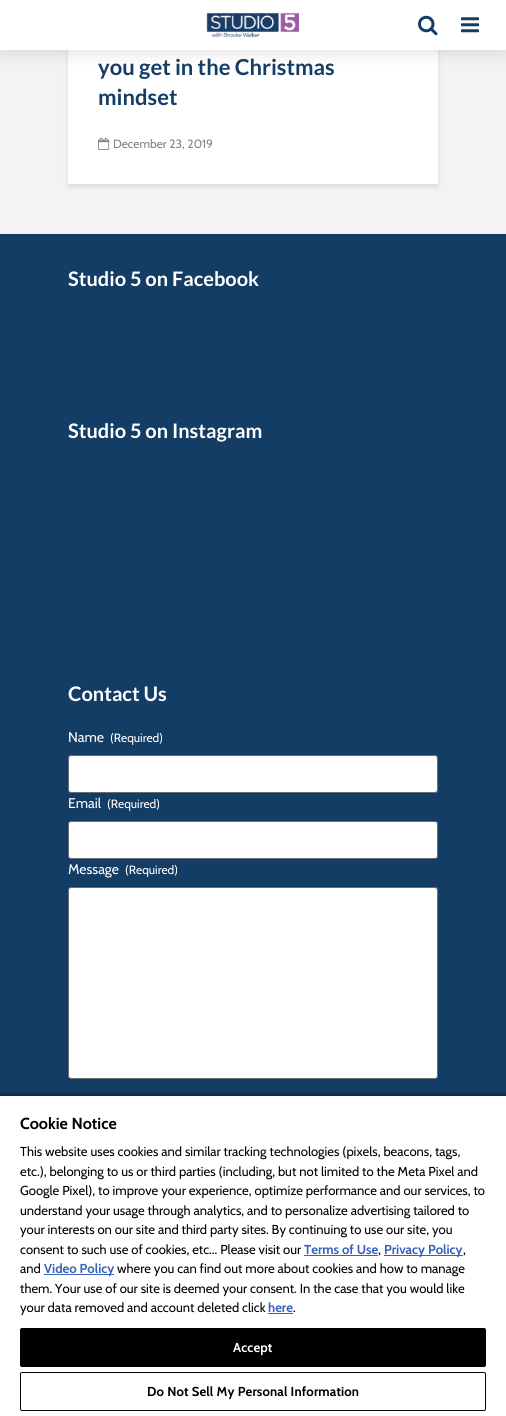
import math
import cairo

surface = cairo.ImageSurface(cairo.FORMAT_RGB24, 506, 1416)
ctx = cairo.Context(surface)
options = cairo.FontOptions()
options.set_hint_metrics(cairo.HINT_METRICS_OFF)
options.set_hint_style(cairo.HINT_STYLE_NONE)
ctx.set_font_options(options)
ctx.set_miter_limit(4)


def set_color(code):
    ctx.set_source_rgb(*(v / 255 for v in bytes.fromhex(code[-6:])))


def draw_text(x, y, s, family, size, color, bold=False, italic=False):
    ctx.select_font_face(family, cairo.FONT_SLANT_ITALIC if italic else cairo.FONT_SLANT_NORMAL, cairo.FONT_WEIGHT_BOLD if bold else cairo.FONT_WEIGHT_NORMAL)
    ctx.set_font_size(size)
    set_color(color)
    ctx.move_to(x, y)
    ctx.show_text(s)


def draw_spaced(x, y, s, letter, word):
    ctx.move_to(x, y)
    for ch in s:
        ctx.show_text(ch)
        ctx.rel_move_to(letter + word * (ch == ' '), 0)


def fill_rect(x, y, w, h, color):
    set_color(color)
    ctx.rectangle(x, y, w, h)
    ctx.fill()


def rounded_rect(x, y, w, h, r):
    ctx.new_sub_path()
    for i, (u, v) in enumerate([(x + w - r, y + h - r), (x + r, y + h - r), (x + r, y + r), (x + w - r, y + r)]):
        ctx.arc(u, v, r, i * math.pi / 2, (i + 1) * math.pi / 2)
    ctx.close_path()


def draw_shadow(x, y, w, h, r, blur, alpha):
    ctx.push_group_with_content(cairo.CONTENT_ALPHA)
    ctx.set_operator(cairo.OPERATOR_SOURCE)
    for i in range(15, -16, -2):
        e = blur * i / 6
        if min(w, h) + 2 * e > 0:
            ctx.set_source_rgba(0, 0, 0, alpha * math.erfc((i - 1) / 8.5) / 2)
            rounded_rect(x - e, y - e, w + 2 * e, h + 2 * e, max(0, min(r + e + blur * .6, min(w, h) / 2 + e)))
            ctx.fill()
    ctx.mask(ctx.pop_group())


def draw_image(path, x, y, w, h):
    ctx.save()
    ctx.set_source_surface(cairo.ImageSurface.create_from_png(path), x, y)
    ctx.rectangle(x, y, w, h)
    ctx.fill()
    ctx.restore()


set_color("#f3f3f3")
ctx.paint()
set_color("#000101")
draw_shadow(68, -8, 370, 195, 0, 2.5, 0.1)
fill_rect(68, 50, 370, 134, "#ffffff")
set_color("#000000")
draw_shadow(0, 0, 506, 50, 0, 10, 0.15)
fill_rect(0, 0, 506, 50, "#ffffff")
draw_image("assets/img1.png", 206, 12, 93, 26)
draw_image("assets/img2.png", 418, 15, 20, 21)
draw_image("assets/img3.png", 461, 17, 18, 16)
draw_text(98, 75, "you get in the Christmas", "Lato", 22, "#143d66", bold=True)
draw_text(98, 105, "mindset", "Lato", 22, "#143d66", bold=True)
draw_image("assets/img4.png", 98, 137, 12, 13)
draw_text(113, 148, "December 23, 2019", "Cabin", 12, "#818181")
fill_rect(0, 234, 506, 862, "#143d66")
draw_text(68, 286, "Studio 5 on Facebook", "Lato", 20, "#ffffff", bold=True)
draw_text(68, 438, "Studio 5 on Instagram", "Lato", 20, "#ffffff", bold=True)
draw_text(68, 701, "Contact Us", "Lato", 20, "#ffffff", bold=True)
draw_text(68, 742, "Name", "Cabin", 14, "#ffffff")
draw_text(110, 742, "(Required)", "Cabin", 12, "#ffffff")
rounded_rect(68.5, 755.5, 369, 37, 2.5)
ctx.fill_preserve()
set_color("#686e77")
ctx.set_line_width(1)
ctx.stroke()
draw_text(68, 808, "Email", "Cabin", 14, "#ffffff")
draw_text(107, 808, "(Required)", "Cabin", 12, "#ffffff")
rounded_rect(68.5, 821.5, 369, 37, 2.5)
ctx.fill_preserve()
set_color("#686e77")
ctx.stroke()
draw_text(68, 874, "Message", "Cabin", 14, "#ffffff")
draw_text(125, 874, "(Required)", "Cabin", 12, "#ffffff")
rounded_rect(68.5, 887.5, 369, 191, 2.5)
ctx.fill_preserve()
set_color("#686e77")
ctx.stroke()
set_color("#000000")
draw_shadow(0, 1094, 506, 322, 0, 2, 0.35)
draw_shadow(0, 1096, 506, 320, 0, 2, 0.2)
fill_rect(0, 1096, 506, 320, "#ffffff")
draw_text(20, 1129, "Cookie Notice", "Cabin", 16, "#000000", bold=True)
draw_text(20, 1156, "This website uses cookies and similar tracking technologies (pixels, beacons, tags,", "Cabin", 13, "#000000")
draw_text(20, 1176, "etc.), belonging to us or third parties (including, but not limited to the Meta Pixel and", "Cabin", 13, "#000000")
draw_text(20, 1195, "Google Pixel), to improve your experience, optimize performance and our services, to", "Cabin", 13, "#000000")
draw_text(20, 1215, "understand your usage through analytics, and to personalize advertising tailored to", "Cabin", 13, "#000000")
draw_text(20, 1234, "your interests on our site and third party sites. By continuing to use our site, you", "Cabin", 13, "#000000")
draw_text(20, 1254, "consent to such use of cookies, etc... Please visit our", "Cabin", 13, "#000000")
draw_text(304, 1254, "Terms of Use", "Cabin", 13, "#3860be", bold=True)
fill_rect(304, 1255, 74, 1, "#3860be")
draw_text(378, 1254, ",", "Cabin", 13, "#000000")
fill_rect(384, 1255, 79, 1, "#3860be")
draw_text(384, 1254, "Privacy Policy", "Cabin", 13, "#3860be", bold=True)
draw_text(463, 1254, ",", "Cabin", 13, "#000000")
draw_text(20, 1273, "and", "Cabin", 13, "#000000")
fill_rect(44, 1274, 70, 1, "#3860be")
draw_text(44, 1273, "Video Policy", "Cabin", 13, "#3860be", bold=True)
draw_text(117, 1273, "where you can find out more about cookies and how to manage", "Cabin", 13, "#000000")
draw_text(20, 1293, "them. Your use of our site is deemed your consent. In the case that you would like", "Cabin", 13, "#000000")
draw_text(20, 1312, "your data removed and account deleted click", "Cabin", 13, "#000000")
draw_text(268, 1312, "here", "Cabin", 13, "#3860be", bold=True)
fill_rect(268, 1313, 25, 1, "#3860be")
draw_text(293, 1312, ".", "Cabin", 13, "#000000")
rounded_rect(20.5, 1328.5, 465, 38, 1.5)
ctx.fill_preserve()
ctx.stroke()
ctx.select_font_face("Cabin", cairo.FONT_SLANT_NORMAL, cairo.FONT_WEIGHT_BOLD)
set_color("#ffffff")
draw_spaced(233, 1352, "Accept", 0.15, 0)
rounded_rect(20.5, 1372.5, 465, 38, 1.5)
set_color("#050505")
ctx.stroke()
set_color("#000000")
draw_spaced(147, 1396, "Do Not Sell My Personal Information", 0.15, 0)
surface.write_to_png("output.png")
